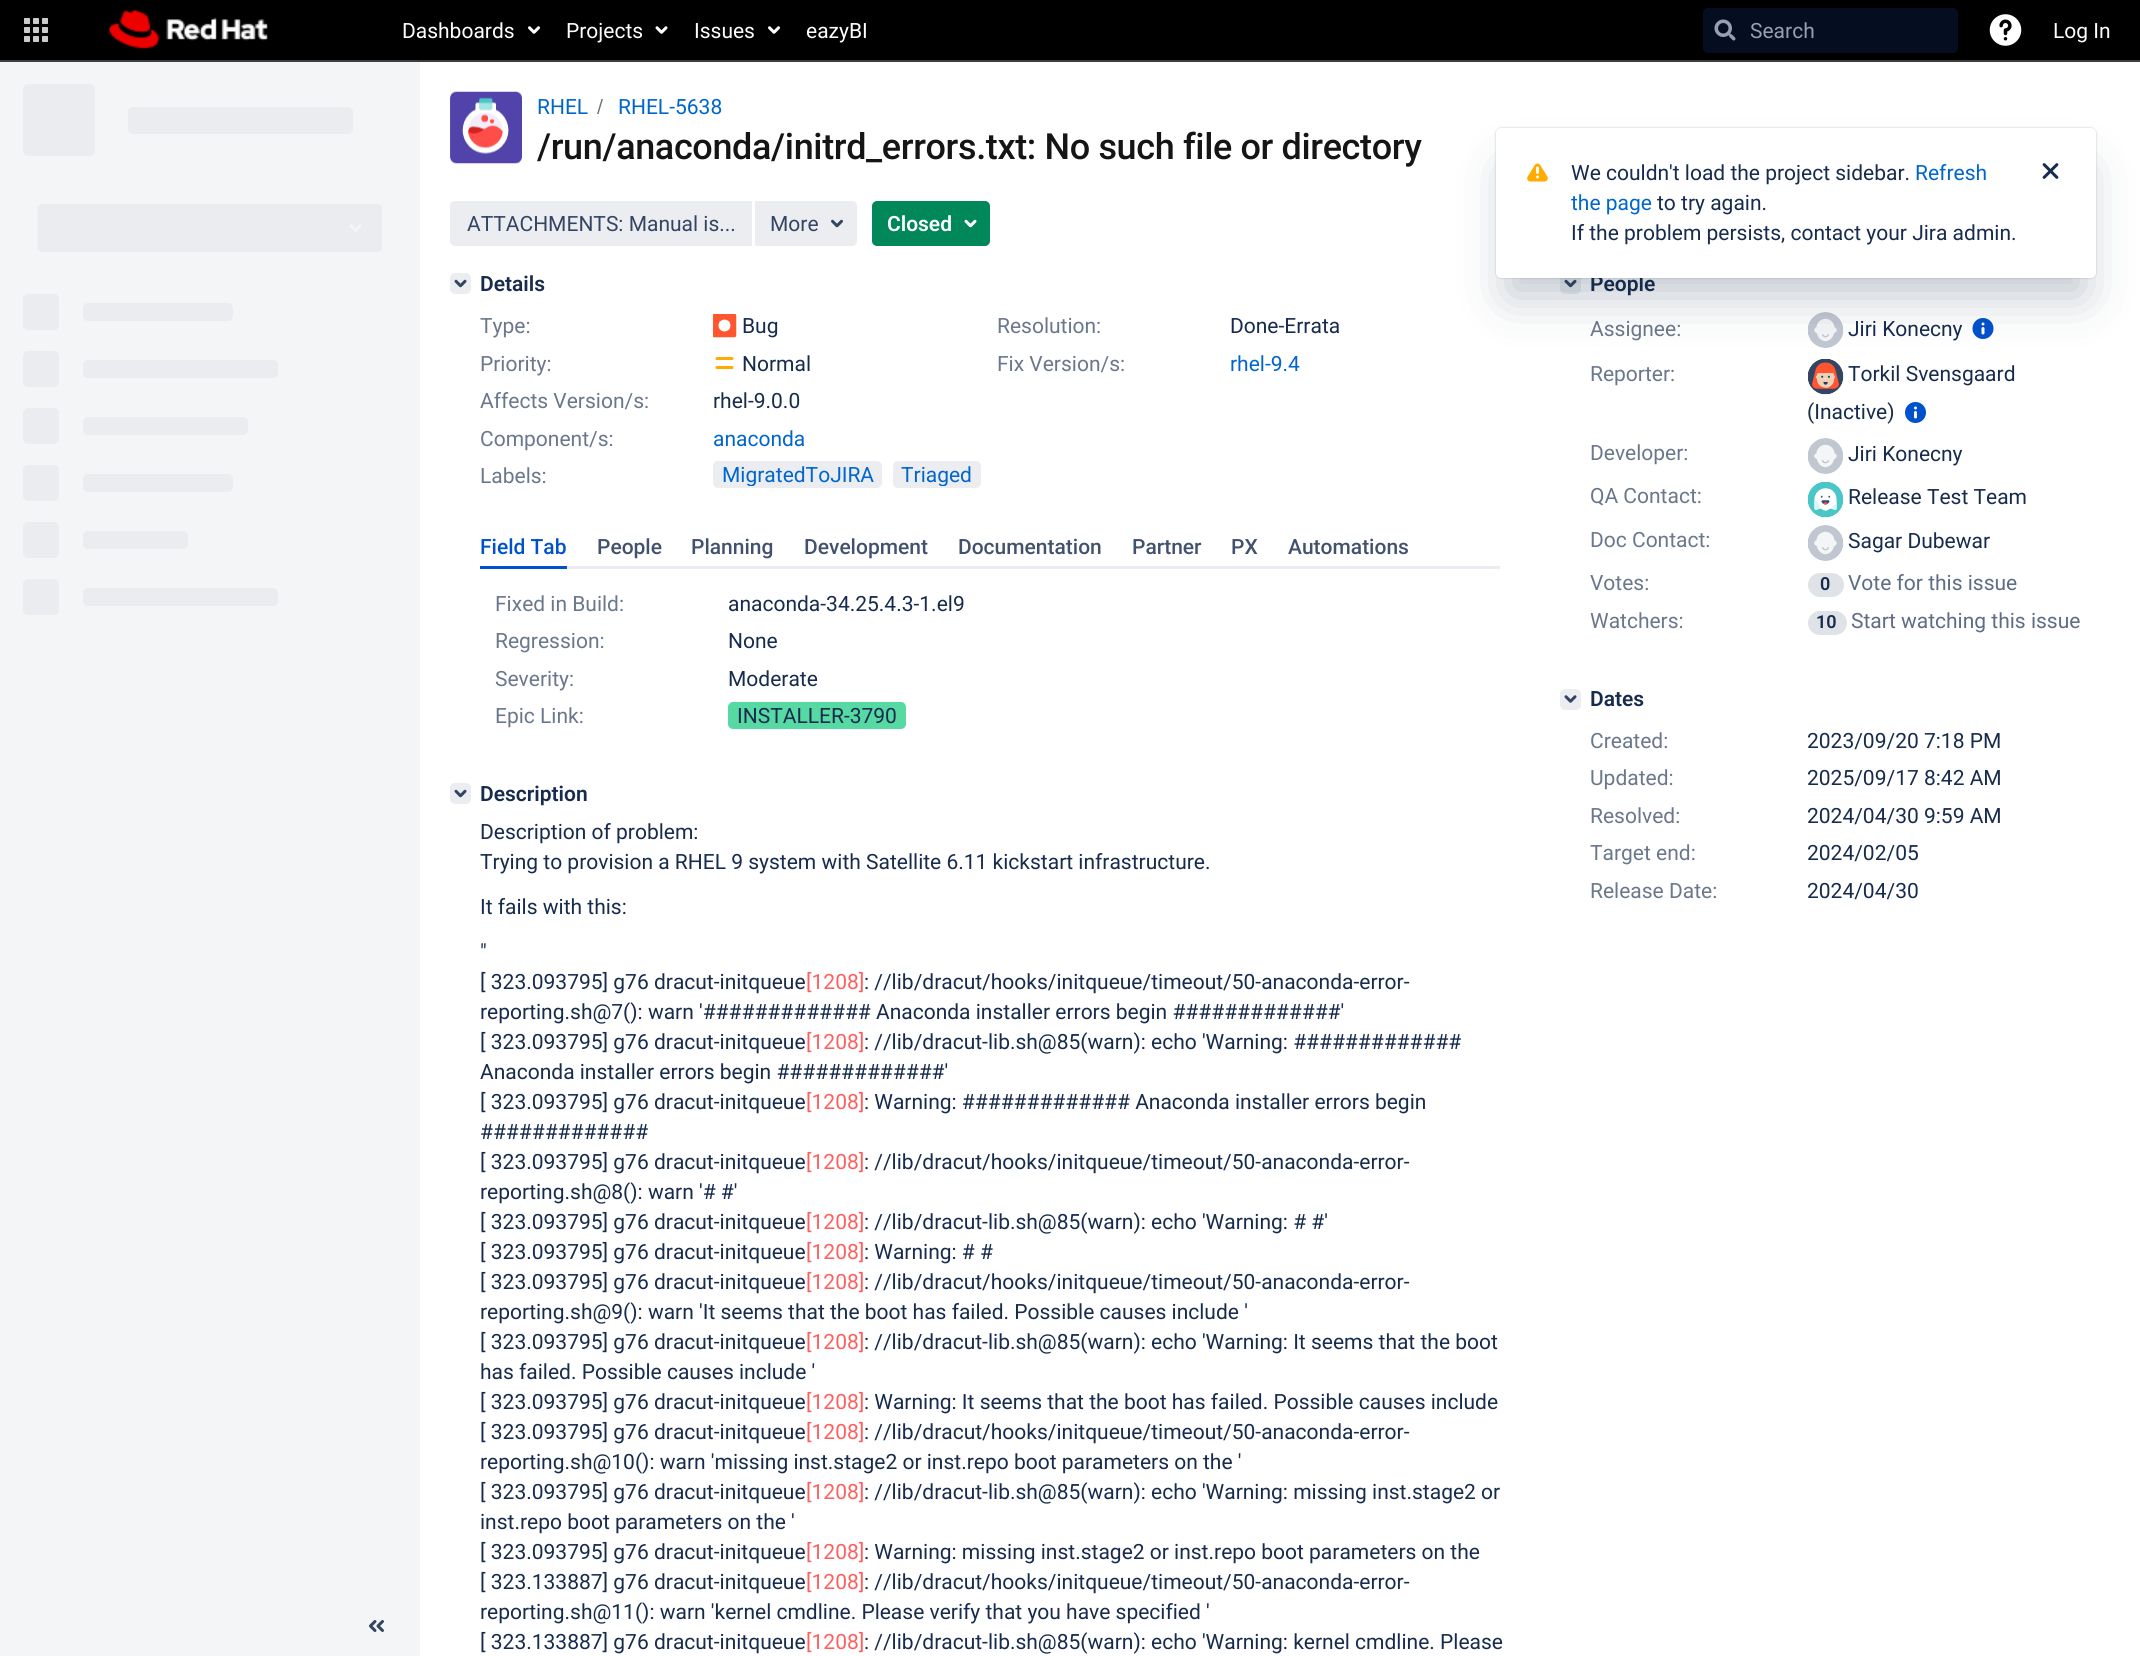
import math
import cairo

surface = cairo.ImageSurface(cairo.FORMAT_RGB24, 2140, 1656)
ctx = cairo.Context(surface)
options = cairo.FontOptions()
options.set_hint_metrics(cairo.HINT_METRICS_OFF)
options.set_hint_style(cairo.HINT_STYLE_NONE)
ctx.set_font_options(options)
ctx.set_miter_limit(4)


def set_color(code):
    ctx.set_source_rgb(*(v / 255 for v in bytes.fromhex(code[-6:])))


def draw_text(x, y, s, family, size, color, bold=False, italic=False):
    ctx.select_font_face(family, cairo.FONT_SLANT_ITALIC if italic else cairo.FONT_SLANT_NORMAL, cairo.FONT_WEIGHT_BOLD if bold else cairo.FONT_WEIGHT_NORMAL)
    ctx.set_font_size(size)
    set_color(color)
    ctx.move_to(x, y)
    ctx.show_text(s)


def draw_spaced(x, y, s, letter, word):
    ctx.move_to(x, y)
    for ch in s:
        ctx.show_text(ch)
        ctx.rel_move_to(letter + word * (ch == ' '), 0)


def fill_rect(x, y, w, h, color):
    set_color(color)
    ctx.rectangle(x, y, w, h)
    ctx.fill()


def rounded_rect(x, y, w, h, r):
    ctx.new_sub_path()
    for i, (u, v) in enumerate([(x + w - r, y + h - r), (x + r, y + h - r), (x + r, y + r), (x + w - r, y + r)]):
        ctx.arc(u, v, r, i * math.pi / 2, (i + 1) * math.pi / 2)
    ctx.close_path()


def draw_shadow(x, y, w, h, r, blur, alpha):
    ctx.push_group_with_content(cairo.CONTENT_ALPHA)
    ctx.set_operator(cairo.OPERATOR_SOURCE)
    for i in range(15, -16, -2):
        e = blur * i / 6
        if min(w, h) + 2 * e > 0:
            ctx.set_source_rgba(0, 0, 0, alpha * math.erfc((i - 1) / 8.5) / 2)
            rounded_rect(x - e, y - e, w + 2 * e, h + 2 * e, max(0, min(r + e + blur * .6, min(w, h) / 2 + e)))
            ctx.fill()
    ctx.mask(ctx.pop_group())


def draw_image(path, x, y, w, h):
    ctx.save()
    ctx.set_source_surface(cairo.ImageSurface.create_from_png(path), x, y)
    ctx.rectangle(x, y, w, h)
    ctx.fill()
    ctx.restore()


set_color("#ffffff")
ctx.paint()
fill_rect(0, 0, 2140, 60, "#000000")
fill_rect(0, 60, 2140, 2, "#3c3f42")
draw_image("assets/img1.png", 24, 18, 24, 24)
draw_image("assets/img2.png", 109, 10, 159, 39)
draw_text(402, 38, "Dashboards", "Roboto", 21, "#ffffff")
draw_image("assets/img3.png", 528, 26, 12, 8)
draw_text(566, 38, "Projects", "Roboto", 21, "#ffffff")
draw_image("assets/img4.png", 655, 26, 13, 8)
draw_text(694, 38, "Issues", "Roboto", 21, "#ffffff")
draw_image("assets/img3.png", 768, 26, 12, 8)
draw_text(806, 38, "eazyBI", "Roboto", 21, "#ffffff")
set_color("#040e20")
rounded_rect(1703, 8, 255, 45, 5)
ctx.fill()
draw_image("assets/img5.png", 1714, 19, 22, 22)
draw_text(1750, 38, "Search", "Roboto", 21, "#97a0af")
draw_image("assets/img6.png", 1989, 14, 33, 32)
draw_text(2053, 38, "Log In", "Roboto", 21, "#ffffff")
fill_rect(0, 62, 420, 1594, "#f4f5f7")
draw_image("assets/img7.png", 23, 84, 359, 531)
draw_image("assets/img8.png", 369, 1620, 15, 12)
draw_image("assets/img9.png", 450, 91, 72, 73)
draw_text(537, 114, "RHEL", "Roboto", 21, "#0066cc")
set_color("#707070")
ctx.new_path()
ctx.move_to(598.5, 114)
ctx.line_to(603, 99)
ctx.line_to(601.5, 99)
ctx.line_to(597, 114)
ctx.close_path()
ctx.fill()
draw_text(618, 114, "RHEL-5638", "Roboto", 21, "#0066cc")
ctx.select_font_face("Roboto Medium")
ctx.set_font_size(36)
set_color("#151515")
draw_spaced(537, 159, "/run/anaconda/initrd_errors.txt: No such file or directory", -0.35, 0)
set_color("#ebedf0")
ctx.new_path()
ctx.move_to(455, 201)
ctx.line_to(752, 201)
ctx.line_to(752, 246)
ctx.line_to(455, 246)
ctx.curve_to(452, 246, 450, 244, 450, 241)
ctx.line_to(450, 206)
ctx.curve_to(450, 203, 452, 201, 455, 201)
ctx.close_path()
ctx.fill()
draw_text(467, 231, "ATTACHMENTS: Manual is...", "Roboto", 21, "#344563")
set_color("#ebedf0")
ctx.new_path()
ctx.move_to(755, 201)
ctx.line_to(852, 201)
ctx.curve_to(855, 201, 857, 203, 857, 206)
ctx.line_to(857, 241)
ctx.curve_to(857, 244, 855, 246, 852, 246)
ctx.line_to(755, 246)
ctx.close_path()
ctx.fill()
draw_text(770, 231, "More", "Roboto", 21, "#344563")
draw_image("assets/img10.png", 831, 219, 12, 9)
set_color("#00875a")
rounded_rect(873, 202, 116, 43, 4)
ctx.fill_preserve()
ctx.stroke()
draw_text(887, 231, "Closed", "Roboto SemiBold", 21, "#ffffff")
draw_image("assets/img11.png", 964, 219, 13, 9)
set_color("#ebedf0")
rounded_rect(450, 273, 21, 21, 5)
ctx.fill()
draw_image("assets/img12.png", 454, 279, 13, 9)
draw_text(480, 291, "Details", "Roboto SemiBold", 21, "#172b4d")
draw_text(480, 333, "Type:", "Roboto", 21, "#6b778c")
draw_image("assets/img13.png", 713, 314, 24, 24)
draw_text(742, 333, "Bug", "Roboto", 21, "#172b4d")
draw_text(997, 333, "Resolution:", "Roboto", 21, "#6b778c")
draw_text(1230, 333, "Done-Errata", "Roboto", 21, "#172b4d")
draw_text(480, 371, "Priority:", "Roboto", 21, "#6b778c")
draw_image("assets/img14.png", 715, 357, 19, 12)
draw_text(742, 371, "Normal", "Roboto", 21, "#172b4d")
draw_text(997, 371, "Fix Version/s:", "Roboto", 21, "#6b778c")
draw_text(1230, 371, "rhel-9.4", "Roboto", 21, "#0066cc")
draw_text(480, 408, "Affects Version/s:", "Roboto", 21, "#6b778c")
draw_text(713, 408, "rhel-9.0.0", "Roboto", 21, "#172b4d")
draw_text(480, 446, "Component/s:", "Roboto", 21, "#6b778c")
draw_text(713, 446, "anaconda", "Roboto", 21, "#0066cc")
draw_text(480, 483, "Labels:", "Roboto", 21, "#6b778c")
set_color("#ebedf0")
rounded_rect(713, 461, 169, 27, 5)
ctx.fill()
ctx.save()
rounded_rect(714, 462, 167, 24, 3)
ctx.clip()
draw_text(722, 482, "MigratedToJIRA", "Roboto", 21, "#0066cc")
ctx.restore()
rounded_rect(893, 461, 88, 27, 5)
ctx.fill()
ctx.save()
rounded_rect(894, 462, 86, 24, 3)
ctx.clip()
draw_text(901, 482, "Triaged", "Roboto", 21, "#0066cc")
ctx.restore()
draw_text(480, 554, "Field Tab", "Roboto Medium", 21, "#0052cc")
fill_rect(480, 566, 87, 3, "#0052cc")
draw_text(597, 554, "People", "Roboto Medium", 21, "#42526e")
draw_text(691, 554, "Planning", "Roboto Medium", 21, "#42526e")
draw_text(804, 554, "Development", "Roboto Medium", 21, "#42526e")
draw_text(958, 554, "Documentation", "Roboto Medium", 21, "#42526e")
draw_text(1132, 554, "Partner", "Roboto Medium", 21, "#42526e")
draw_text(1231, 554, "PX", "Roboto Medium", 21, "#42526e")
draw_text(1288, 554, "Automations", "Roboto Medium", 21, "#42526e")
fill_rect(567, 566, 933, 3, "#ebecf1")
draw_text(495, 611, "Fixed in Build:", "Roboto", 21, "#6b778c")
draw_text(728, 611, "anaconda-34.25.4.3-1.el9", "Roboto", 21, "#172b4d")
draw_text(495, 648, "Regression:", "Roboto", 21, "#6b778c")
draw_text(728, 648, "None", "Roboto", 21, "#172b4d")
draw_text(495, 686, "Severity:", "Roboto", 21, "#6b778c")
draw_text(728, 686, "Moderate", "Roboto", 21, "#172b4d")
draw_text(495, 723, "Epic Link:", "Roboto", 21, "#6b778c")
set_color("#57d9a3")
rounded_rect(729, 703, 176, 25, 4)
ctx.fill_preserve()
ctx.stroke()
draw_text(737, 723, "INSTALLER-3790", "Roboto", 21, "#172b4d")
set_color("#ebedf0")
rounded_rect(450, 783, 21, 21, 5)
ctx.fill()
draw_image("assets/img12.png", 454, 789, 13, 9)
draw_text(480, 801, "Description", "Roboto SemiBold", 21, "#172b4d")
draw_text(480, 839, "Description of problem:", "Roboto", 21, "#172b4d")
draw_text(480, 869, "Trying to provision a RHEL 9 system with Satellite 6.11 kickstart infrastructure.", "Roboto", 21, "#172b4d")
draw_text(480, 914, "It fails with this:", "Roboto", 21, "#172b4d")
draw_text(480, 959, "\"", "Roboto", 21, "#172b4d")
draw_text(480, 989, "[ 323.093795] g76 dracut-initqueue", "Roboto", 21, "#172b4d")
draw_text(806, 989, "[1208]", "Roboto", 21, "#ff5f5f")
draw_text(864, 989, ": //lib/dracut/hooks/initqueue/timeout/50-anaconda-error-", "Roboto", 21, "#172b4d")
draw_text(480, 1019, "reporting.sh@7(): warn '############# Anaconda installer errors begin #############'", "Roboto", 21, "#172b4d")
draw_text(480, 1049, "[ 323.093795] g76 dracut-initqueue", "Roboto", 21, "#172b4d")
draw_text(806, 1049, "[1208]", "Roboto", 21, "#ff5f5f")
draw_text(864, 1049, ": //lib/dracut-lib.sh@85(warn): echo 'Warning: #############", "Roboto", 21, "#172b4d")
draw_text(480, 1079, "Anaconda installer errors begin #############'", "Roboto", 21, "#172b4d")
draw_text(480, 1109, "[ 323.093795] g76 dracut-initqueue", "Roboto", 21, "#172b4d")
draw_text(806, 1109, "[1208]", "Roboto", 21, "#ff5f5f")
draw_text(864, 1109, ": Warning: ############# Anaconda installer errors begin", "Roboto", 21, "#172b4d")
draw_text(480, 1139, "#############", "Roboto", 21, "#172b4d")
draw_text(480, 1169, "[ 323.093795] g76 dracut-initqueue", "Roboto", 21, "#172b4d")
draw_text(806, 1169, "[1208]", "Roboto", 21, "#ff5f5f")
draw_text(864, 1169, ": //lib/dracut/hooks/initqueue/timeout/50-anaconda-error-", "Roboto", 21, "#172b4d")
draw_text(480, 1199, "reporting.sh@8(): warn '# #'", "Roboto", 21, "#172b4d")
draw_text(480, 1229, "[ 323.093795] g76 dracut-initqueue", "Roboto", 21, "#172b4d")
draw_text(806, 1229, "[1208]", "Roboto", 21, "#ff5f5f")
draw_text(864, 1229, ": //lib/dracut-lib.sh@85(warn): echo 'Warning: # #'", "Roboto", 21, "#172b4d")
draw_text(480, 1259, "[ 323.093795] g76 dracut-initqueue", "Roboto", 21, "#172b4d")
draw_text(806, 1259, "[1208]", "Roboto", 21, "#ff5f5f")
draw_text(864, 1259, ": Warning: # #", "Roboto", 21, "#172b4d")
draw_text(480, 1289, "[ 323.093795] g76 dracut-initqueue", "Roboto", 21, "#172b4d")
draw_text(806, 1289, "[1208]", "Roboto", 21, "#ff5f5f")
draw_text(864, 1289, ": //lib/dracut/hooks/initqueue/timeout/50-anaconda-error-", "Roboto", 21, "#172b4d")
draw_text(480, 1319, "reporting.sh@9(): warn 'It seems that the boot has failed. Possible causes include '", "Roboto", 21, "#172b4d")
draw_text(480, 1349, "[ 323.093795] g76 dracut-initqueue", "Roboto", 21, "#172b4d")
draw_text(806, 1349, "[1208]", "Roboto", 21, "#ff5f5f")
draw_text(864, 1349, ": //lib/dracut-lib.sh@85(warn): echo 'Warning: It seems that the boot", "Roboto", 21, "#172b4d")
draw_text(480, 1379, "has failed. Possible causes include '", "Roboto", 21, "#172b4d")
draw_text(480, 1409, "[ 323.093795] g76 dracut-initqueue", "Roboto", 21, "#172b4d")
draw_text(806, 1409, "[1208]", "Roboto", 21, "#ff5f5f")
draw_text(864, 1409, ": Warning: It seems that the boot has failed. Possible causes include", "Roboto", 21, "#172b4d")
draw_text(480, 1439, "[ 323.093795] g76 dracut-initqueue", "Roboto", 21, "#172b4d")
draw_text(806, 1439, "[1208]", "Roboto", 21, "#ff5f5f")
draw_text(864, 1439, ": //lib/dracut/hooks/initqueue/timeout/50-anaconda-error-", "Roboto", 21, "#172b4d")
draw_text(480, 1469, "reporting.sh@10(): warn 'missing inst.stage2 or inst.repo boot parameters on the '", "Roboto", 21, "#172b4d")
draw_text(480, 1499, "[ 323.093795] g76 dracut-initqueue", "Roboto", 21, "#172b4d")
draw_text(806, 1499, "[1208]", "Roboto", 21, "#ff5f5f")
draw_text(864, 1499, ": //lib/dracut-lib.sh@85(warn): echo 'Warning: missing inst.stage2 or", "Roboto", 21, "#172b4d")
draw_text(480, 1529, "inst.repo boot parameters on the '", "Roboto", 21, "#172b4d")
draw_text(480, 1559, "[ 323.093795] g76 dracut-initqueue", "Roboto", 21, "#172b4d")
draw_text(806, 1559, "[1208]", "Roboto", 21, "#ff5f5f")
draw_text(864, 1559, ": Warning: missing inst.stage2 or inst.repo boot parameters on the", "Roboto", 21, "#172b4d")
draw_text(480, 1589, "[ 323.133887] g76 dracut-initqueue", "Roboto", 21, "#172b4d")
draw_text(806, 1589, "[1208]", "Roboto", 21, "#ff5f5f")
draw_text(864, 1589, ": //lib/dracut/hooks/initqueue/timeout/50-anaconda-error-", "Roboto", 21, "#172b4d")
draw_text(480, 1619, "reporting.sh@11(): warn 'kernel cmdline. Please verify that you have specified '", "Roboto", 21, "#172b4d")
draw_text(480, 1649, "[ 323.133887] g76 dracut-initqueue", "Roboto", 21, "#172b4d")
draw_text(806, 1649, "[1208]", "Roboto", 21, "#ff5f5f")
draw_text(864, 1649, ": //lib/dracut-lib.sh@85(warn): echo 'Warning: kernel cmdline. Please", "Roboto", 21, "#172b4d")
set_color("#ebedf0")
rounded_rect(1560, 273, 21, 21, 5)
ctx.fill()
draw_image("assets/img12.png", 1564, 279, 13, 9)
draw_text(1590, 291, "People", "Roboto SemiBold", 21, "#172b4d")
draw_text(1590, 336, "Assignee:", "Roboto", 21, "#6b778c")
draw_image("assets/img15.png", 1808, 312, 36, 36)
draw_text(1848, 336, "Jiri Konecny", "Roboto", 21, "#172b4d")
draw_image("assets/img16.png", 1972, 318, 22, 21)
draw_text(1590, 381, "Reporter:", "Roboto", 21, "#6b778c")
draw_image("assets/img17.png", 1808, 359, 36, 36)
draw_text(1848, 381, "Torkil Svensgaard", "Roboto", 21, "#172b4d")
draw_text(1807, 419, "(Inactive)", "Roboto", 21, "#172b4d")
draw_image("assets/img18.png", 1905, 402, 21, 21)
draw_text(1590, 460, "Developer:", "Roboto", 21, "#6b778c")
draw_image("assets/img15.png", 1808, 438, 36, 36)
draw_text(1848, 461, "Jiri Konecny", "Roboto", 21, "#172b4d")
draw_text(1590, 503, "QA Contact:", "Roboto", 21, "#6b778c")
draw_image("assets/img19.png", 1808, 482, 36, 36)
draw_text(1848, 504, "Release Test Team", "Roboto", 21, "#172b4d")
draw_text(1590, 547, "Doc Contact:", "Roboto", 21, "#6b778c")
draw_image("assets/img15.png", 1808, 525, 36, 36)
draw_text(1848, 548, "Sagar Dubewar", "Roboto", 21, "#172b4d")
draw_text(1590, 590, "Votes:", "Roboto", 21, "#6b778c")
set_color("#dfe2e6")
rounded_rect(1808, 573, 36, 24, 12)
ctx.fill()
draw_text(1820, 590, "0", "Roboto SemiBold", 18, "#172b4d")
draw_text(1848, 590, "Vote for this issue", "Roboto", 21, "#5e6c84")
draw_text(1590, 628, "Watchers:", "Roboto", 21, "#6b778c")
set_color("#dfe2e6")
rounded_rect(1808, 611, 39, 24, 12)
ctx.fill()
draw_text(1816, 628, "10", "Roboto SemiBold", 18, "#172b4d")
draw_text(1851, 628, "Start watching this issue", "Roboto", 21, "#5e6c84")
set_color("#ebedf0")
rounded_rect(1560, 689, 21, 21, 5)
ctx.fill()
draw_image("assets/img20.png", 1564, 695, 13, 8)
draw_text(1590, 706, "Dates", "Roboto SemiBold", 21, "#172b4d")
draw_text(1590, 748, "Created:", "Roboto", 21, "#6b778c")
draw_text(1807, 748, "2023/09/20 7:18 PM", "Roboto", 21, "#172b4d")
draw_text(1590, 785, "Updated:", "Roboto", 21, "#6b778c")
draw_text(1807, 785, "2025/09/17 8:42 AM", "Roboto", 21, "#172b4d")
draw_text(1590, 823, "Resolved:", "Roboto", 21, "#6b778c")
draw_text(1807, 823, "2024/04/30 9:59 AM", "Roboto", 21, "#172b4d")
draw_text(1590, 860, "Target end:", "Roboto", 21, "#6b778c")
draw_text(1807, 860, "2024/02/05", "Roboto", 21, "#172b4d")
draw_text(1590, 898, "Release Date:", "Roboto", 21, "#6b778c")
draw_text(1807, 898, "2024/04/30", "Roboto", 21, "#172b4d")
set_color("#091e42")
draw_shadow(1496, 128, 600, 150, 5, 1, 0.25)
draw_shadow(1508, 170, 576, 126, 0, 24, 0.25)
set_color("#ffffff")
rounded_rect(1496, 128, 600, 150, 5)
ctx.fill()
draw_image("assets/img21.png", 1527, 163, 21, 19)
draw_text(1571, 180, "We couldn't load the project sidebar.", "Roboto", 21, "#172b4d")
draw_text(1915, 180, "Refresh", "Roboto", 21, "#0066cc")
draw_image("assets/img22.png", 2042, 163, 17, 16)
draw_text(1571, 210, "the page", "Roboto", 21, "#0066cc")
draw_text(1657, 210, "to try again.", "Roboto", 21, "#172b4d")
draw_text(1571, 240, "If the problem persists, contact your Jira admin.", "Roboto", 21, "#172b4d")
surface.write_to_png("output.png")
